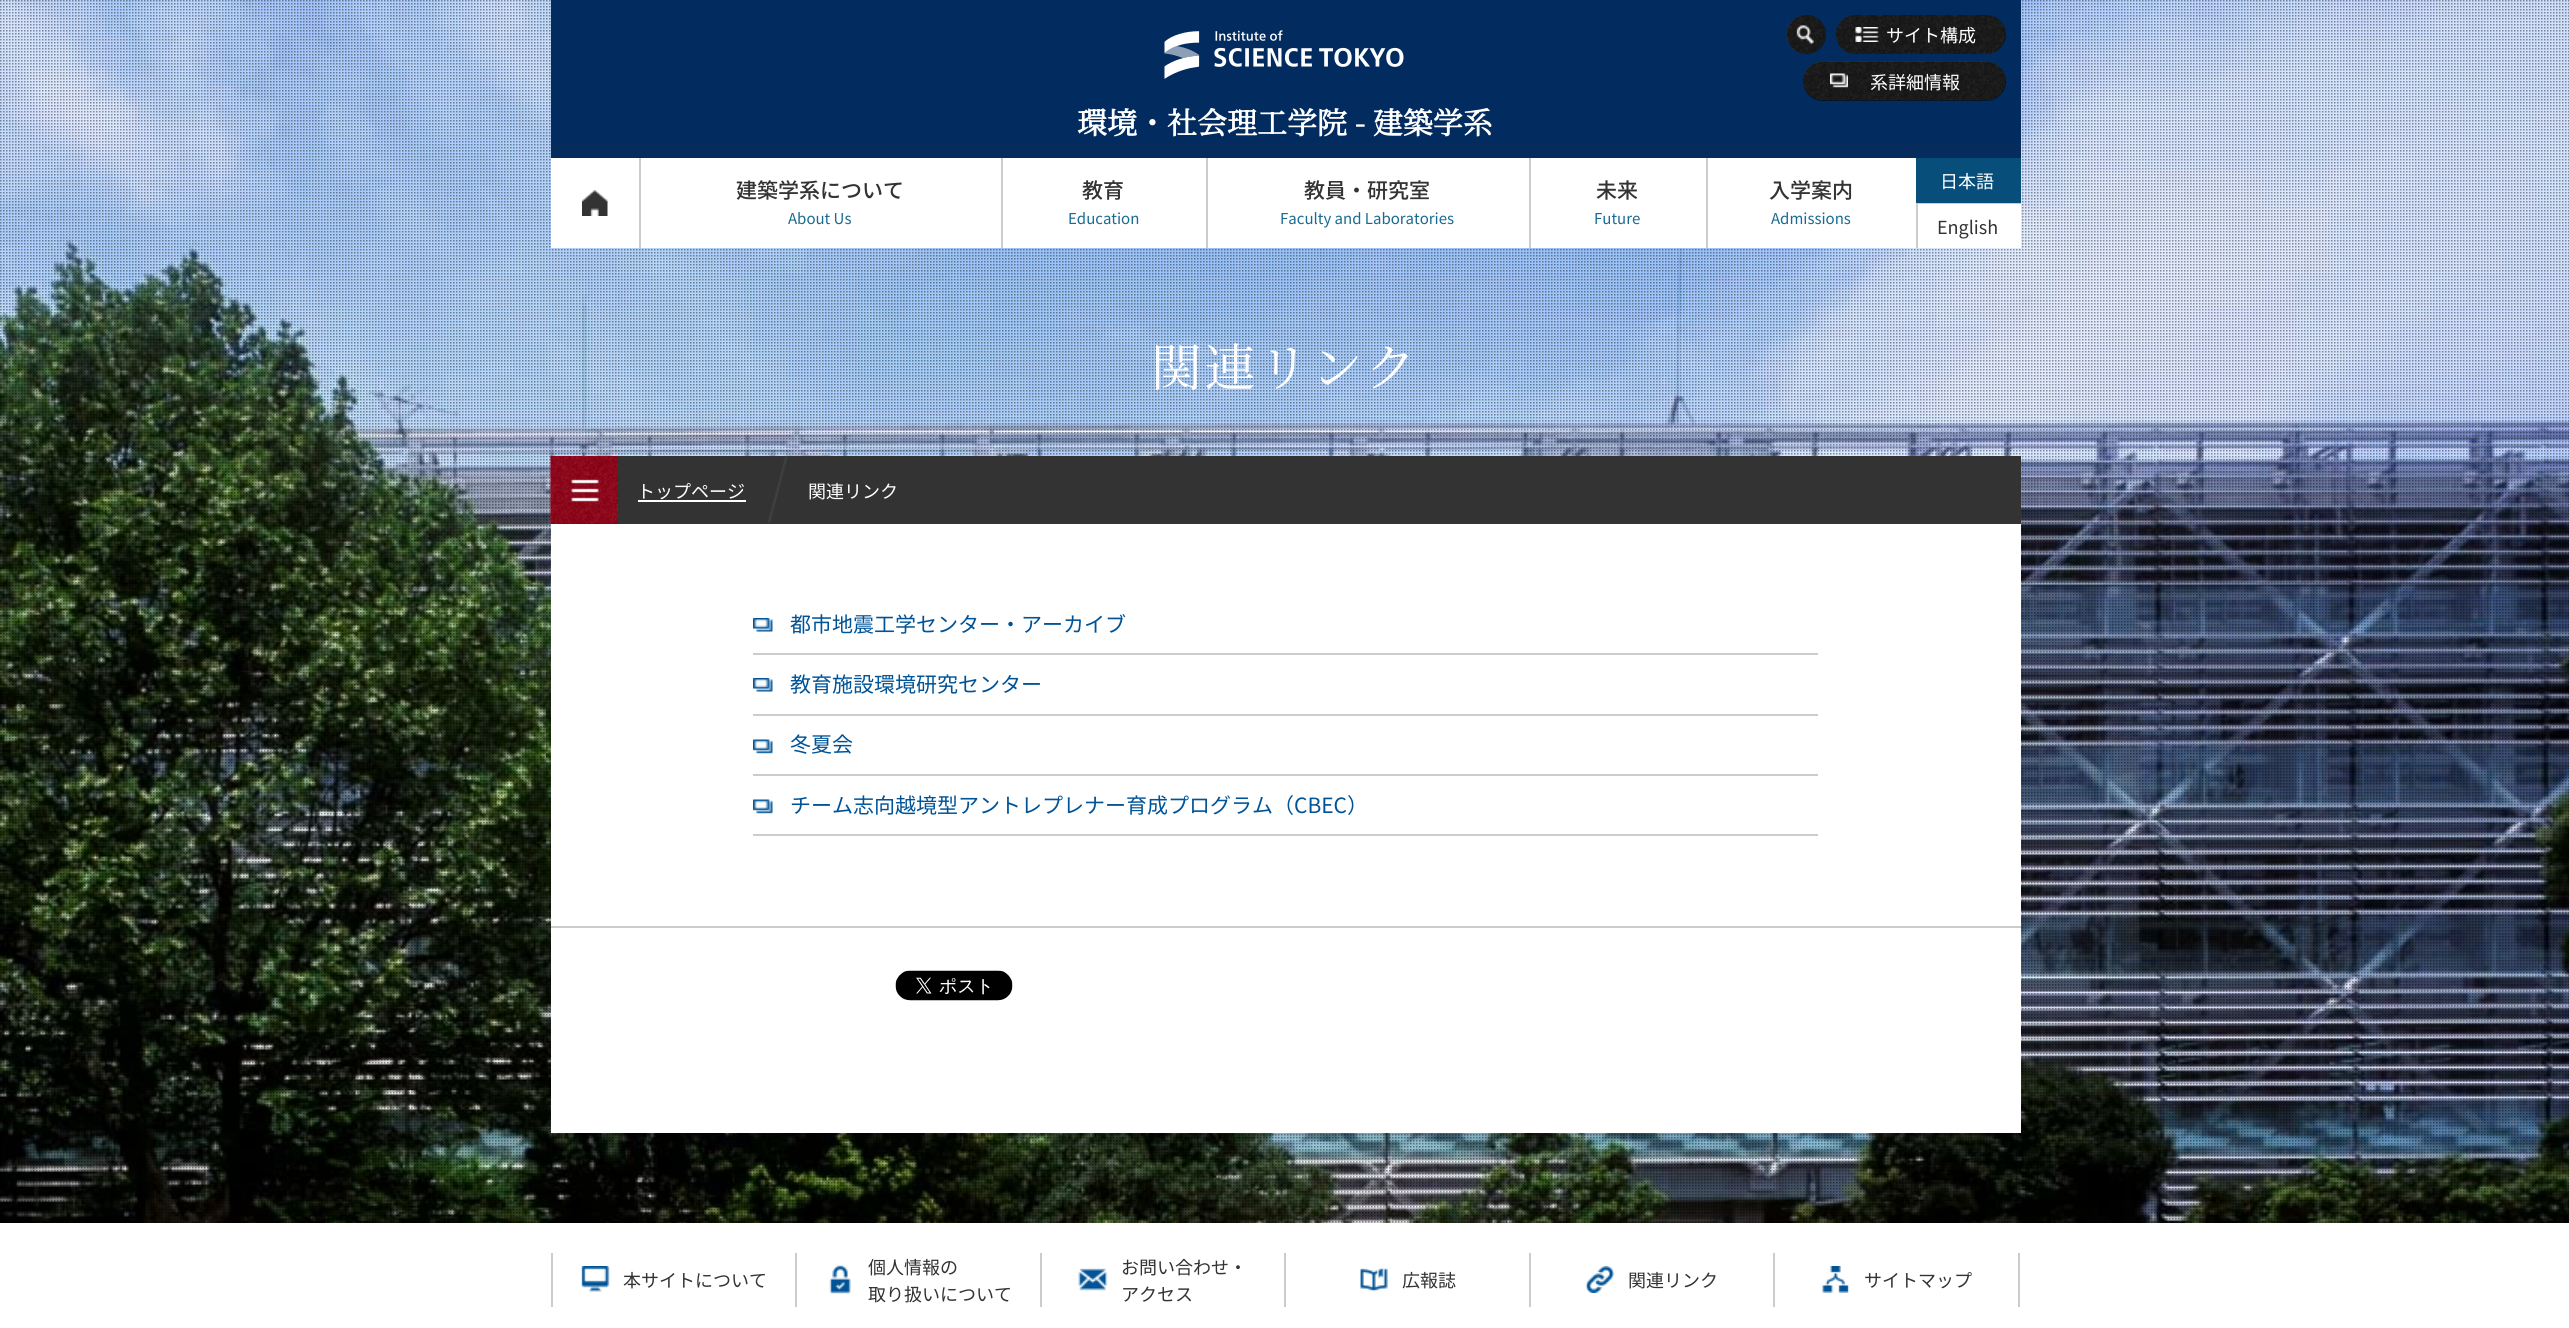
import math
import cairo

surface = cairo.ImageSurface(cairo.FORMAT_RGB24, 2569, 1328)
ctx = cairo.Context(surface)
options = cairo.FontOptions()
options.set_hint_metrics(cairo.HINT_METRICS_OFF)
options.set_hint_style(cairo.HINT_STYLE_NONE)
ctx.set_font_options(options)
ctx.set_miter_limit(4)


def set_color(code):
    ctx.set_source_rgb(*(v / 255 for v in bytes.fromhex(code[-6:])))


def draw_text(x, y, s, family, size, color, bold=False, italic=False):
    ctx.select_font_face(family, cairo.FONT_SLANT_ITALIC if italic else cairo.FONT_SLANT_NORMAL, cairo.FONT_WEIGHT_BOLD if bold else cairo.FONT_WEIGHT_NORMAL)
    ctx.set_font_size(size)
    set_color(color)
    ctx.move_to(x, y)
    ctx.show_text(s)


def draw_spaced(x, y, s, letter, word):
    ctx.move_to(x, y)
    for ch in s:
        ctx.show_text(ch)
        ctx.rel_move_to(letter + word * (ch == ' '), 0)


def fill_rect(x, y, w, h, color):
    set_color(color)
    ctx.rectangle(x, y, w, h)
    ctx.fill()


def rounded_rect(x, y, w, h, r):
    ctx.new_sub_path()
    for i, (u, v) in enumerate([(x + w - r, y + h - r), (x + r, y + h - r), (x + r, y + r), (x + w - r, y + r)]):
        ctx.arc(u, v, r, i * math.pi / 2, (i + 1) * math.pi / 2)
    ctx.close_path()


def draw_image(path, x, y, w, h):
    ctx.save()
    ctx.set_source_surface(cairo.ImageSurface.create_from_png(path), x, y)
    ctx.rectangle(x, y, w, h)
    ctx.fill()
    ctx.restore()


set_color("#ffffff")
ctx.paint()
draw_image("assets/img1.png", 0, 0, 2569, 1223)
draw_image("assets/img2.png", 0, 0, 2569, 1223)
fill_rect(551, 456, 1470, 68, "#333333")
draw_image("assets/img3.png", 550, 456, 68, 68)
ctx.set_source_rgba(0, 0, 0, 0.15)
ctx.rectangle(551, 456, 67, 68)
ctx.fill()
draw_image("assets/img4.png", 571, 479, 28, 23)
fill_rect(551, 0, 1470, 143, "#022b5f")
draw_image("assets/img5.png", 1786, 15, 40, 39)
ctx.set_source_rgba(0, 0, 0, 0.5)
ctx.arc(1806.5, 34.5, 19.5, 0, 2 * math.pi)
ctx.fill()
draw_image("assets/img6.png", 1796, 25, 18, 19)
draw_image("assets/img7.png", 1836, 15, 170, 39)
rounded_rect(1836, 15, 170, 39, 19.5)
ctx.fill()
draw_image("assets/img8.png", 1855, 27, 24, 15)
draw_text(1886, 42, "サイト構成", "Noto Sans JP", 18, "#ffffff")
draw_image("assets/img9.png", 1803, 61, 203, 40)
ctx.set_source_rgba(0, 0, 0, 0.5)
rounded_rect(1803, 62, 203, 39, 19.5)
ctx.fill()
draw_image("assets/img10.png", 1830, 73, 18, 15)
draw_text(1870, 89, "系詳細情報", "Noto Sans JP", 18, "#ffffff")
fill_rect(551, 158, 88, 90, "#ffffff")
draw_image("assets/img11.png", 582, 190, 26, 26)
fill_rect(641, 158, 360, 90, "#ffffff")
fill_rect(639, 158, 2, 90, "#cccccc")
draw_text(736, 198, "建築学系について", "Noto Sans JP Medium", 21, "#333333")
draw_text(788, 224, "About Us", "Noto Sans JP", 15, "#186b91")
fill_rect(1003, 158, 203, 90, "#ffffff")
fill_rect(1001, 158, 2, 90, "#cccccc")
draw_text(1082, 198, "教育", "Noto Sans JP Medium", 21, "#333333")
draw_text(1068, 224, "Education", "Noto Sans JP", 15, "#186b91")
fill_rect(1208, 158, 321, 90, "#ffffff")
fill_rect(1206, 158, 2, 90, "#cccccc")
draw_text(1304, 198, "教員・研究室", "Noto Sans JP Medium", 21, "#333333")
draw_text(1280, 224, "Faculty and Laboratories", "Noto Sans JP", 15, "#186b91")
fill_rect(1531, 158, 175, 90, "#ffffff")
fill_rect(1529, 158, 2, 90, "#cccccc")
draw_text(1596, 198, "未来", "Noto Sans JP Medium", 21, "#333333")
draw_text(1594, 224, "Future", "Noto Sans JP", 15, "#186b91")
fill_rect(1708, 158, 208, 90, "#ffffff")
fill_rect(1706, 158, 2, 90, "#cccccc")
draw_text(1769, 198, "入学案内", "Noto Sans JP Medium", 21, "#333333")
draw_text(1771, 224, "Admissions", "Noto Sans JP", 15, "#186b91")
fill_rect(551, 143, 1470, 15, "#052c5d")
fill_rect(1916, 203, 105, 1, "#cccccc")
fill_rect(1916, 158, 105, 45, "#074e7a")
draw_text(1940, 188, "日本語", "Noto Sans JP", 18, "#ffffff")
fill_rect(1918, 204, 103, 44, "#ffffff")
fill_rect(1916, 204, 2, 44, "#cccccc")
draw_text(1937, 234, "English", "Noto Sans JP", 18, "#333333")
draw_image("assets/img12.png", 1164, 30, 240, 49)
draw_text(1077, 134, "環境・社会理工学院 - 建築学系", "Noto Serif JP", 30, "#ffffff", bold=True)
ctx.select_font_face("Noto Serif JP ExtraLight")
ctx.set_font_size(51)
draw_spaced(1151, 386, "関連リンク", 2.5, 0)
fill_rect(551, 524, 1470, 609, "#ffffff")
draw_image("assets/img13.png", 753, 618, 20, 14)
fill_rect(753, 653, 1065, 2, "#cccccc")
draw_text(790, 632, "都市地震工学センター・アーカイブ", "Noto Sans JP", 21, "#005396")
draw_image("assets/img13.png", 753, 678, 20, 14)
fill_rect(753, 714, 1065, 2, "#cccccc")
draw_text(790, 692, "教育施設環境研究センター", "Noto Sans JP", 21, "#005396")
draw_image("assets/img14.png", 753, 739, 20, 15)
fill_rect(753, 774, 1065, 2, "#cccccc")
draw_text(790, 752, "冬夏会", "Noto Sans JP", 21, "#005396")
draw_image("assets/img14.png", 753, 799, 20, 15)
fill_rect(753, 834, 1065, 2, "#cccccc")
draw_text(790, 813, "チーム志向越境型アントレプレナー育成プログラム（CBEC）", "Noto Sans JP", 21, "#005396")
fill_rect(551, 926, 1470, 2, "#cccccc")
draw_image("assets/img15.png", 895, 970, 118, 31)
fill_rect(551, 1253, 2, 54, "#cccccc")
fill_rect(795, 1253, 2, 54, "#cccccc")
draw_image("assets/img16.png", 581, 1266, 29, 26)
draw_text(623, 1287, "本サイトについて", "Noto Sans JP", 18, "#333333")
fill_rect(1040, 1253, 2, 54, "#cccccc")
draw_image("assets/img17.png", 829, 1265, 22, 29)
draw_text(868, 1274, "個人情報の", "Noto Sans JP", 18, "#333333")
draw_text(868, 1301, "取り扱いについて", "Noto Sans JP", 18, "#333333")
fill_rect(1284, 1253, 2, 54, "#cccccc")
draw_image("assets/img18.png", 1078, 1268, 30, 23)
draw_text(1121, 1274, "お問い合わせ・", "Noto Sans JP", 18, "#333333")
draw_text(1121, 1301, "アクセス", "Noto Sans JP", 18, "#333333")
fill_rect(1529, 1253, 2, 54, "#cccccc")
draw_image("assets/img19.png", 1360, 1267, 28, 25)
draw_text(1402, 1287, "広報誌", "Noto Sans JP", 18, "#333333")
fill_rect(1773, 1253, 2, 54, "#cccccc")
draw_image("assets/img20.png", 1585, 1266, 30, 27)
draw_text(1628, 1287, "関連リンク", "Noto Sans JP", 18, "#333333")
fill_rect(2018, 1253, 2, 54, "#cccccc")
draw_image("assets/img21.png", 1822, 1266, 27, 27)
draw_text(1864, 1287, "サイトマップ", "Noto Sans JP", 18, "#333333")
draw_text(637, 498, "トップページ", "Noto Sans JP", 18, "#ffffff")
fill_rect(638, 500, 108, 2, "#ffffff")
draw_image("assets/img22.png", 768, 456, 20, 67)
draw_text(808, 498, "関連リンク", "Noto Sans JP", 18, "#ffffff")
surface.write_to_png("output.png")
